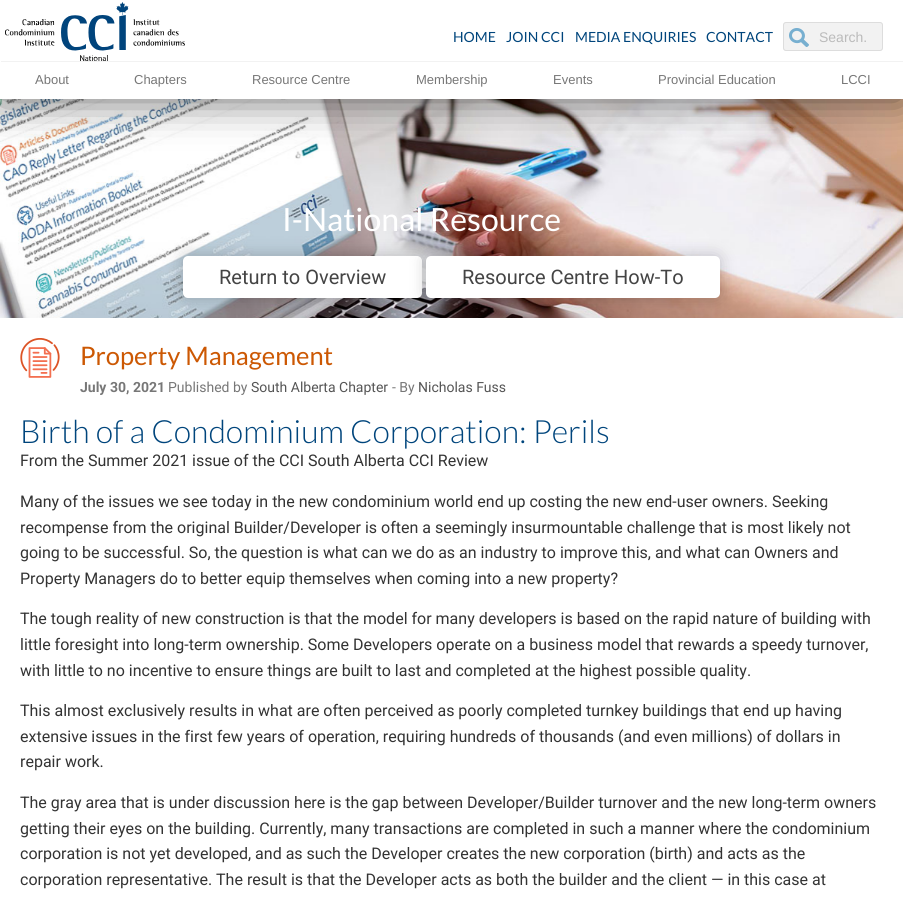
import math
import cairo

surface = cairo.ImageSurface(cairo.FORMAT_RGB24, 903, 901)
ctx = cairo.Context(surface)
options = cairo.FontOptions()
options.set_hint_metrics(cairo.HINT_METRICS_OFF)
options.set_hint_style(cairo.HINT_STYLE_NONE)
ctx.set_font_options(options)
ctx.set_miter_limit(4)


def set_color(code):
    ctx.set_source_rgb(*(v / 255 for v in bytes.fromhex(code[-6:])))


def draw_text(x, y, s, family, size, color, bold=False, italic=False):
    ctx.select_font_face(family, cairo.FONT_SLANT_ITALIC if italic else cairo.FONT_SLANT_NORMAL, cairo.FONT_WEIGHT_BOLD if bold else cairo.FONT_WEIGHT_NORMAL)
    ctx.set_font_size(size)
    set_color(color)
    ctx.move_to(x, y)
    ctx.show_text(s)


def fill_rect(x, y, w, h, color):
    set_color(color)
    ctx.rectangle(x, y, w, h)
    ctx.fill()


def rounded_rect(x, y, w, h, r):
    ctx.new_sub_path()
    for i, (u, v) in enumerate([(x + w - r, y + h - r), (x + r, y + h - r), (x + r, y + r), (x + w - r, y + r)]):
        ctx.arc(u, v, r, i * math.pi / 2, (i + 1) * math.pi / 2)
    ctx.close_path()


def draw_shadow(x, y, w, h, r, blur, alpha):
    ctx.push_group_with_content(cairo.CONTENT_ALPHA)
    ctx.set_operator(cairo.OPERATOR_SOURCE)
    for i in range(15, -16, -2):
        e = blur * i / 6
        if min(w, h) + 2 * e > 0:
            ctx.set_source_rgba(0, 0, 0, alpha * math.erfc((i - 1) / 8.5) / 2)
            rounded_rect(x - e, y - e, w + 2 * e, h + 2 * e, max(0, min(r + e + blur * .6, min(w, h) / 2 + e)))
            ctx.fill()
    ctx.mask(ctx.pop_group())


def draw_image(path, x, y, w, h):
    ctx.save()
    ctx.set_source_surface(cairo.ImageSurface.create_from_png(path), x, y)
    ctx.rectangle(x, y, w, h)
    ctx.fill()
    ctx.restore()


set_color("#ffffff")
ctx.paint()
draw_image("assets/img3.png", 0, 99, 903, 219)
set_color("#000000")
draw_shadow(0, 1, 903, 99, 0, 20.5, 0.6)
fill_rect(0, 0, 903, 99, "#ffffff")
draw_image("assets/img1.png", 5, 2, 180, 59)
draw_text(453, 42, "HOME", "Lato", 14, "#00457c")
draw_text(506, 42, "JOIN CCI", "Lato", 14, "#00457c")
draw_text(575, 42, "MEDIA ENQUIRIES", "Lato", 14, "#00457c")
draw_text(706, 42, "CONTACT", "Lato", 14, "#00457c")
set_color("#f2f2f2")
rounded_rect(783, 22, 100, 29, 3)
ctx.fill()
draw_image("assets/img2.png", 789, 28, 20, 19)
rounded_rect(783.5, 22.5, 99, 28, 2.5)
set_color("#dddddd")
ctx.set_line_width(1)
ctx.stroke()
draw_text(819, 42, "Search.", "Liberation Sans", 14, "#bbbbbb")
fill_rect(1, 61, 902, 1, "#f2f2f2")
draw_text(35, 84, "About", "Liberation Sans", 13, "#777777")
draw_text(134, 84, "Chapters", "Liberation Sans", 13, "#777777")
draw_text(252, 84, "Resource Centre", "Liberation Sans", 13, "#777777")
draw_text(416, 84, "Membership", "Liberation Sans", 13, "#777777")
draw_text(553, 84, "Events", "Liberation Sans", 13, "#777777")
draw_text(658, 84, "Provincial Education", "Liberation Sans", 13, "#777777")
draw_text(841, 84, "LCCI", "Liberation Sans", 13, "#777777")
draw_text(282, 231, "I-National Resource", "Lato", 32, "#ffffff")
set_color("#000000")
draw_shadow(182, 255, 241, 44, 6, 7.5, 0.2)
set_color("#ffffff")
rounded_rect(183, 256, 239, 42, 5)
ctx.fill()
draw_text(219, 284, "Return to Overview", "Roboto", 20, "#444444")
set_color("#000000")
draw_shadow(425, 255, 296, 44, 6, 7.5, 0.2)
set_color("#ffffff")
rounded_rect(426, 256, 294, 42, 5)
ctx.fill()
draw_text(462, 284, "Resource Centre How-To", "Roboto", 20, "#444444")
draw_image("assets/img4.png", 20, 338, 40, 40)
draw_text(80, 365, "Property Management", "Lato", 25.5, "#cc5803")
draw_text(80, 392, "July 30, 2021", "Roboto", 14, "#777777", bold=True)
draw_text(168, 392, "Published by", "Roboto", 14, "#777777")
draw_text(251, 392, "South Alberta Chapter", "Roboto", 14, "#555555")
draw_text(392, 392, "- By", "Roboto", 14, "#777777")
draw_text(418, 392, "Nicholas Fuss", "Roboto", 14, "#555555")
draw_text(20, 443, "Birth of a Condominium Corporation: Perils", "Lato Light", 32, "#00457c")
draw_text(20, 466, "From the Summer 2021 issue of the CCI South Alberta CCI Review", "Roboto", 16, "#333333")
draw_text(20, 507, "Many of the issues we see today in the new condominium world end up costing the new end-user owners. Seeking", "Roboto", 16, "#333333")
draw_text(20, 533, "recompense from the original Builder/Developer is often a seemingly insurmountable challenge that is most likely not", "Roboto", 16, "#333333")
draw_text(20, 558, "going to be successful. So, the question is what can we do as an industry to improve this, and what can Owners and", "Roboto", 16, "#333333")
draw_text(20, 584, "Property Managers do to better equip themselves when coming into a new property?", "Roboto", 16, "#333333")
draw_text(20, 624, "The tough reality of new construction is that the model for many developers is based on the rapid nature of building with", "Roboto", 16, "#333333")
draw_text(20, 650, "little foresight into long-term ownership. Some Developers operate on a business model that rewards a speedy turnover,", "Roboto", 16, "#333333")
draw_text(20, 676, "with little to no incentive to ensure things are built to last and completed at the highest possible quality.", "Roboto", 16, "#333333")
draw_text(20, 716, "This almost exclusively results in what are often perceived as poorly completed turnkey buildings that end up having", "Roboto", 16, "#333333")
draw_text(20, 742, "extensive issues in the first few years of operation, requiring hundreds of thousands (and even millions) of dollars in", "Roboto", 16, "#333333")
draw_text(20, 767, "repair work.", "Roboto", 16, "#333333")
draw_text(20, 808, "The gray area that is under discussion here is the gap between Developer/Builder turnover and the new long-term owners", "Roboto", 16, "#333333")
draw_text(20, 834, "getting their eyes on the building. Currently, many transactions are completed in such a manner where the condominium", "Roboto", 16, "#333333")
draw_text(20, 859, "corporation is not yet developed, and as such the Developer creates the new corporation (birth) and acts as the", "Roboto", 16, "#333333")
draw_text(20, 885, "corporation representative. The result is that the Developer acts as both the builder and the client — in this case at", "Roboto", 16, "#333333")
surface.write_to_png("output.png")
